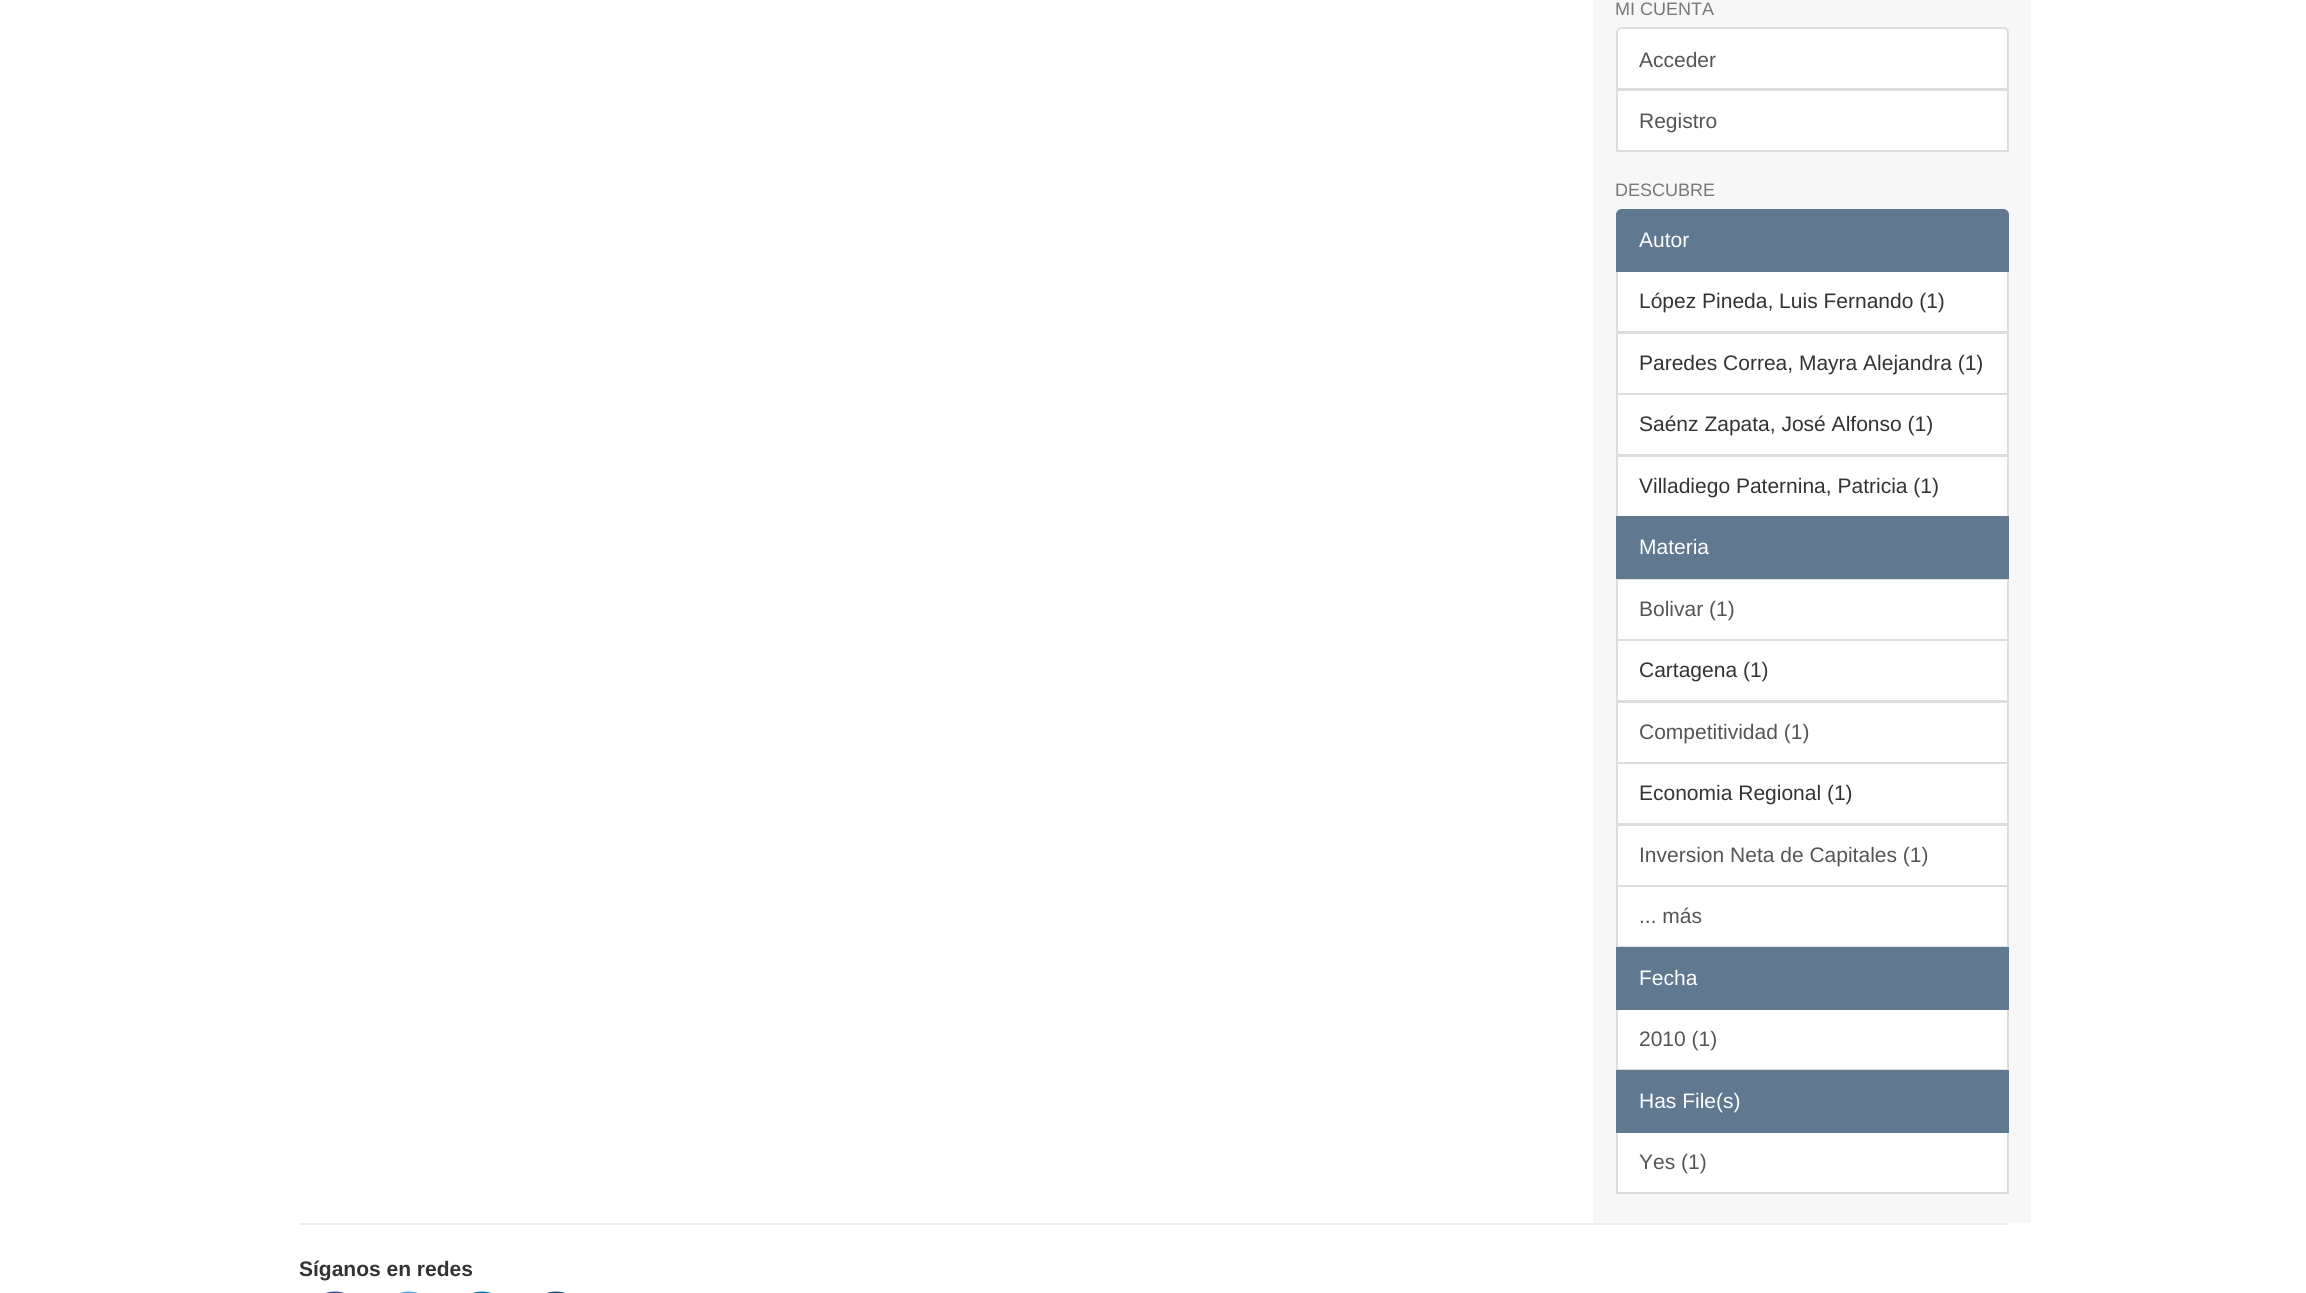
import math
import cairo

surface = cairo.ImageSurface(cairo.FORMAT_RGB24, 2306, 1293)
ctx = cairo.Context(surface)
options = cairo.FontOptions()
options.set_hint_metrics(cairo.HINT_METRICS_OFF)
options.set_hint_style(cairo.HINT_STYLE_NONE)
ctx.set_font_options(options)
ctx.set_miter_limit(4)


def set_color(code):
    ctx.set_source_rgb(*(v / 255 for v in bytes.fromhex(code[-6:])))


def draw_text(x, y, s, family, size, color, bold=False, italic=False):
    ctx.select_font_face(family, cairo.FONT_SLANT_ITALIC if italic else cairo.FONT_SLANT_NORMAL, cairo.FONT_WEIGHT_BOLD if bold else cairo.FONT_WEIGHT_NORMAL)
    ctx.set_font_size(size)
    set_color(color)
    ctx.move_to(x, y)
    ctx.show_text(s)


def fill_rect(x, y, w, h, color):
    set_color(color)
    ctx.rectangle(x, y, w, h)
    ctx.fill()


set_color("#ffffff")
ctx.paint()
fill_rect(1593, 0, 438, 1223, "#f7f7f7")
draw_text(1615, 15, "MI CUENTA", "Liberation Sans", 18, "#777777")
set_color("#ffffff")
ctx.new_path()
ctx.move_to(1622, 28)
ctx.line_to(2003, 28)
ctx.curve_to(2006, 28, 2008, 30, 2008, 33)
ctx.line_to(2008, 89)
ctx.line_to(1617, 89)
ctx.line_to(1617, 33)
ctx.curve_to(1617, 30, 1619, 28, 1622, 28)
ctx.close_path()
ctx.fill_preserve()
set_color("#dddddd")
ctx.stroke()
draw_text(1639, 67, "Acceder", "Liberation Sans", 21, "#555555")
set_color("#ffffff")
ctx.rectangle(1617, 90, 391, 61)
ctx.fill_preserve()
set_color("#dddddd")
ctx.stroke()
draw_text(1639, 128, "Registro", "Liberation Sans", 21, "#555555")
draw_text(1615, 196, "DESCUBRE", "Liberation Sans", 18, "#777777")
set_color("#ffffff")
ctx.rectangle(1617, 271, 391, 61)
ctx.fill_preserve()
set_color("#dddddd")
ctx.stroke()
set_color("#607890")
ctx.new_path()
ctx.move_to(1622, 210)
ctx.line_to(2003, 210)
ctx.curve_to(2006, 210, 2008, 212, 2008, 215)
ctx.line_to(2008, 271)
ctx.line_to(1617, 271)
ctx.line_to(1617, 215)
ctx.curve_to(1617, 212, 1619, 210, 1622, 210)
ctx.close_path()
ctx.fill_preserve()
ctx.stroke()
draw_text(1639, 247, "Autor", "Liberation Sans", 21, "#ffffff")
draw_text(1639, 308, "López Pineda, Luis Fernando (1)", "Liberation Sans", 21, "#333333")
set_color("#ffffff")
ctx.rectangle(1617, 333, 391, 61)
ctx.fill_preserve()
set_color("#dddddd")
ctx.stroke()
draw_text(1639, 370, "Paredes Correa, Mayra Alejandra (1)", "Liberation Sans", 21, "#333333")
set_color("#ffffff")
ctx.rectangle(1617, 394, 391, 61)
ctx.fill_preserve()
set_color("#dddddd")
ctx.stroke()
draw_text(1639, 431, "Saénz Zapata, José Alfonso (1)", "Liberation Sans", 21, "#333333")
set_color("#ffffff")
ctx.rectangle(1617, 456, 391, 61)
ctx.fill_preserve()
set_color("#dddddd")
ctx.stroke()
draw_text(1639, 493, "Villadiego Paternina, Patricia (1)", "Liberation Sans", 21, "#333333")
set_color("#ffffff")
ctx.rectangle(1617, 579, 391, 61)
ctx.fill_preserve()
set_color("#dddddd")
ctx.stroke()
fill_rect(1616, 516, 393, 63, "#607890")
draw_text(1639, 554, "Materia", "Liberation Sans", 21, "#ffffff")
draw_text(1639, 616, "Bolivar (1)", "Liberation Sans", 21, "#555555")
set_color("#ffffff")
ctx.rectangle(1617, 640, 391, 61)
ctx.fill_preserve()
set_color("#dddddd")
ctx.stroke()
draw_text(1639, 677, "Cartagena (1)", "Liberation Sans", 21, "#333333")
set_color("#ffffff")
ctx.rectangle(1617, 702, 391, 61)
ctx.fill_preserve()
set_color("#dddddd")
ctx.stroke()
draw_text(1639, 739, "Competitividad (1)", "Liberation Sans", 21, "#555555")
set_color("#ffffff")
ctx.rectangle(1617, 763, 391, 61)
ctx.fill_preserve()
set_color("#dddddd")
ctx.stroke()
draw_text(1639, 800, "Economia Regional (1)", "Liberation Sans", 21, "#333333")
set_color("#ffffff")
ctx.rectangle(1617, 825, 391, 61)
ctx.fill_preserve()
set_color("#dddddd")
ctx.stroke()
draw_text(1639, 862, "Inversion Neta de Capitales (1)", "Liberation Sans", 21, "#555555")
set_color("#ffffff")
ctx.rectangle(1617, 886, 391, 61)
ctx.fill_preserve()
set_color("#dddddd")
ctx.stroke()
draw_text(1639, 923, "... más", "Liberation Sans", 21, "#555555")
set_color("#ffffff")
ctx.rectangle(1617, 1009, 391, 61)
ctx.fill_preserve()
set_color("#dddddd")
ctx.stroke()
fill_rect(1616, 947, 393, 63, "#607890")
draw_text(1639, 985, "Fecha", "Liberation Sans", 21, "#ffffff")
draw_text(1639, 1046, "2010 (1)", "Liberation Sans", 21, "#555555")
set_color("#ffffff")
ctx.rectangle(1617, 1132, 391, 61)
ctx.fill_preserve()
set_color("#dddddd")
ctx.stroke()
fill_rect(1616, 1070, 393, 63, "#607890")
draw_text(1639, 1108, "Has File(s)", "Liberation Sans", 21, "#ffffff")
draw_text(1639, 1169, "Yes (1)", "Liberation Sans", 21, "#555555")
fill_rect(299, 1223, 1710, 2, "#eeeeee")
draw_text(299, 1276, "Síganos en redes", "Liberation Sans", 21, "#333333", bold=True)
set_color("#3b5998")
ctx.new_path()
ctx.move_to(335, 1291.5)
ctx.curve_to(354, 1291.5, 369, 1308.5, 369, 1329)
ctx.curve_to(369, 1349.5, 354, 1366.5, 335, 1366.5)
ctx.curve_to(316, 1366.5, 301, 1349.5, 301, 1329)
ctx.curve_to(301, 1308.5, 316, 1291.5, 335, 1291.5)
ctx.close_path()
ctx.fill()
set_color("#55acee")
ctx.new_path()
ctx.move_to(409, 1291.5)
ctx.curve_to(428, 1291.5, 443, 1308.5, 443, 1329)
ctx.curve_to(443, 1349.5, 428, 1366.5, 409, 1366.5)
ctx.curve_to(390, 1366.5, 375, 1349.5, 375, 1329)
ctx.curve_to(375, 1308.5, 390, 1291.5, 409, 1291.5)
ctx.close_path()
ctx.fill()
set_color("#007bb5")
ctx.new_path()
ctx.move_to(482, 1291.5)
ctx.curve_to(501, 1291.5, 516, 1308.5, 516, 1329)
ctx.curve_to(516, 1349.5, 501, 1366.5, 482, 1366.5)
ctx.curve_to(463, 1366.5, 448, 1349.5, 448, 1329)
ctx.curve_to(448, 1308.5, 463, 1291.5, 482, 1291.5)
ctx.close_path()
ctx.fill()
set_color("#125688")
ctx.new_path()
ctx.move_to(556, 1291.5)
ctx.curve_to(575, 1291.5, 590, 1308.5, 590, 1329)
ctx.curve_to(590, 1349.5, 575, 1366.5, 556, 1366.5)
ctx.curve_to(537, 1366.5, 522, 1349.5, 522, 1329)
ctx.curve_to(522, 1308.5, 537, 1291.5, 556, 1291.5)
ctx.close_path()
ctx.fill()
surface.write_to_png("output.png")
